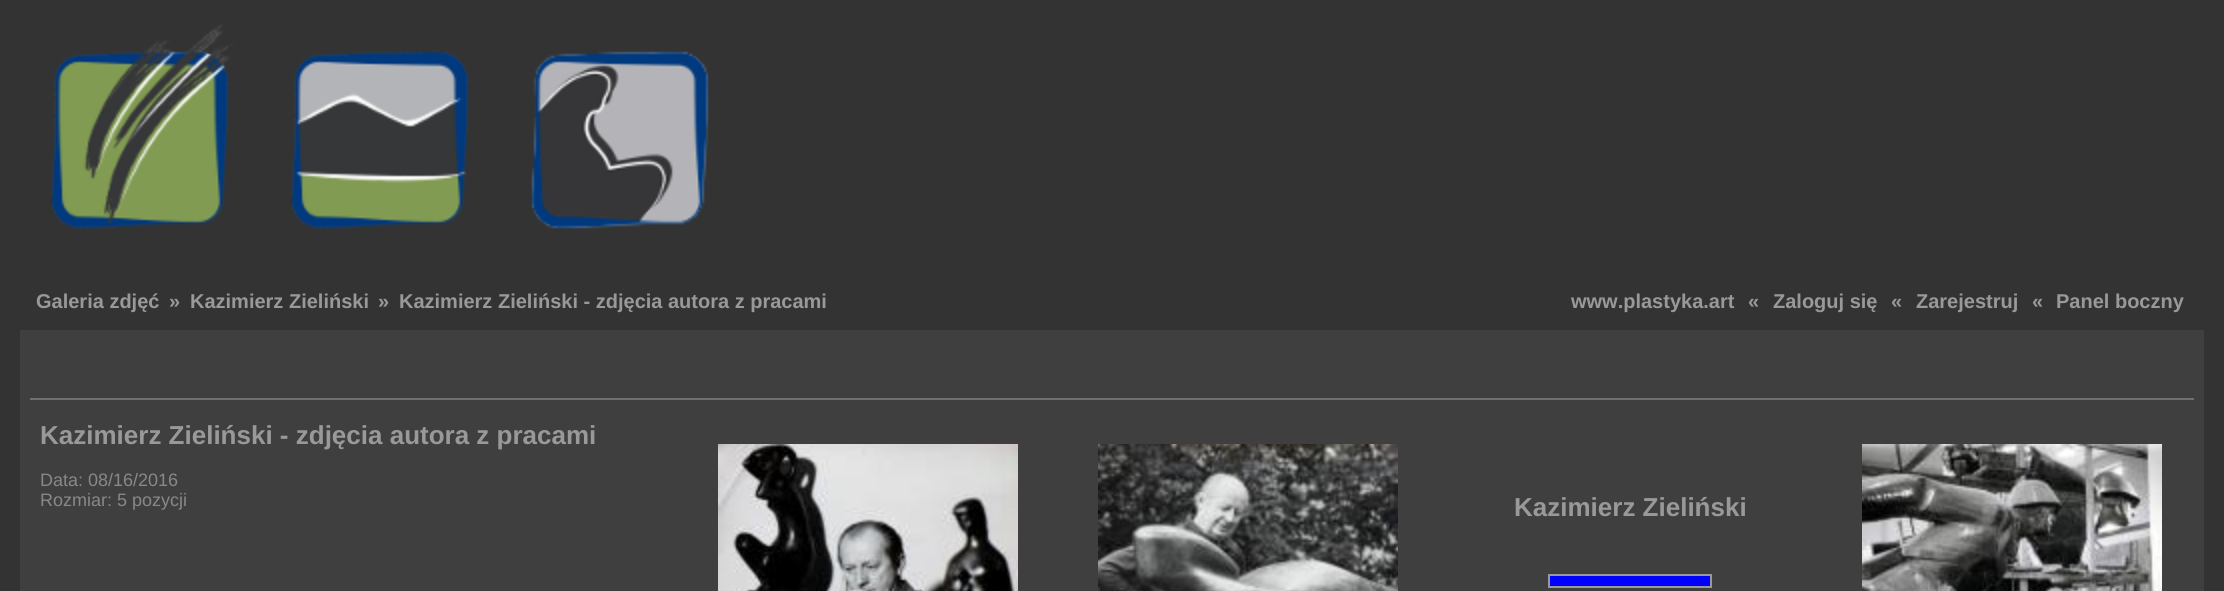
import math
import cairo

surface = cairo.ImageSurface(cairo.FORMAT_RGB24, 2224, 591)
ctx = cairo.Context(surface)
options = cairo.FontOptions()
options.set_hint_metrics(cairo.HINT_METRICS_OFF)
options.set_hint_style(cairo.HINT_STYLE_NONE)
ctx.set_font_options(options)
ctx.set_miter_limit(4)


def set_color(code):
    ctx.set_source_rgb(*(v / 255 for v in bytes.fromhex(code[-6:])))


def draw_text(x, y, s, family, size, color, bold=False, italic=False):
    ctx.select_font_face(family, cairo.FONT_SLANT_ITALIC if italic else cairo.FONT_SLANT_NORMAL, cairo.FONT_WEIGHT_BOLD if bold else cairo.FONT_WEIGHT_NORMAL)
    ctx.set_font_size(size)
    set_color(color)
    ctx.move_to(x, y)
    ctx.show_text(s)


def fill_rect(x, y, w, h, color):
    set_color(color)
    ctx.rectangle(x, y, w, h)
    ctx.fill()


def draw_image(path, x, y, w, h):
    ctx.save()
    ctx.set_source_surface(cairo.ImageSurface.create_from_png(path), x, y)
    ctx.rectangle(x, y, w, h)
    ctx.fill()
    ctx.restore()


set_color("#333333")
ctx.paint()
draw_image("assets/img1.png", 51, 23, 658, 206)
draw_text(36, 308, "Galeria zdjęć", "Liberation Sans", 20, "#999999", bold=True)
draw_text(169, 308, "»", "Liberation Sans", 20, "#999999", bold=True)
draw_text(190, 308, "Kazimierz Zieliński", "Liberation Sans", 20, "#999999", bold=True)
draw_text(378, 308, "»", "Liberation Sans", 20, "#999999", bold=True)
draw_text(399, 308, "Kazimierz Zieliński - zdjęcia autora z pracami", "Liberation Sans", 20, "#999999", bold=True)
draw_text(1571, 308, "www.plastyka.art", "Liberation Sans", 20, "#999999", bold=True)
draw_text(1748, 308, "«", "Liberation Sans", 20, "#999999", bold=True)
draw_text(1773, 308, "Zaloguj się", "Liberation Sans", 20, "#999999", bold=True)
draw_text(1891, 308, "«", "Liberation Sans", 20, "#999999", bold=True)
draw_text(1916, 308, "Zarejestruj", "Liberation Sans", 20, "#999999", bold=True)
draw_text(2032, 308, "«", "Liberation Sans", 20, "#999999", bold=True)
draw_text(2056, 308, "Panel boczny", "Liberation Sans", 20, "#999999", bold=True)
fill_rect(20, 330, 2184, 261, "#3f3f3f")
fill_rect(30, 398, 2164, 2, "#6f6f6f")
draw_text(40, 444, "Kazimierz Zieliński - zdjęcia autora z pracami", "Liberation Sans", 26, "#999999", bold=True)
draw_text(40, 486, "Data: 08/16/2016", "Liberation Sans", 18, "#888888")
draw_text(40, 506, "Rozmiar: 5 pozycji", "Liberation Sans", 18, "#888888")
draw_image("assets/img2.png", 718, 444, 300, 147)
draw_image("assets/img3.png", 1098, 444, 300, 147)
draw_text(1514, 516, "Kazimierz Zieliński", "Liberation Sans", 26, "#999999", bold=True)
ctx.rectangle(1549, 575, 162, 12)
ctx.stroke()
fill_rect(1550, 576, 160, 10, "#0000ff")
draw_image("assets/img4.png", 1862, 444, 300, 147)
surface.write_to_png("output.png")
